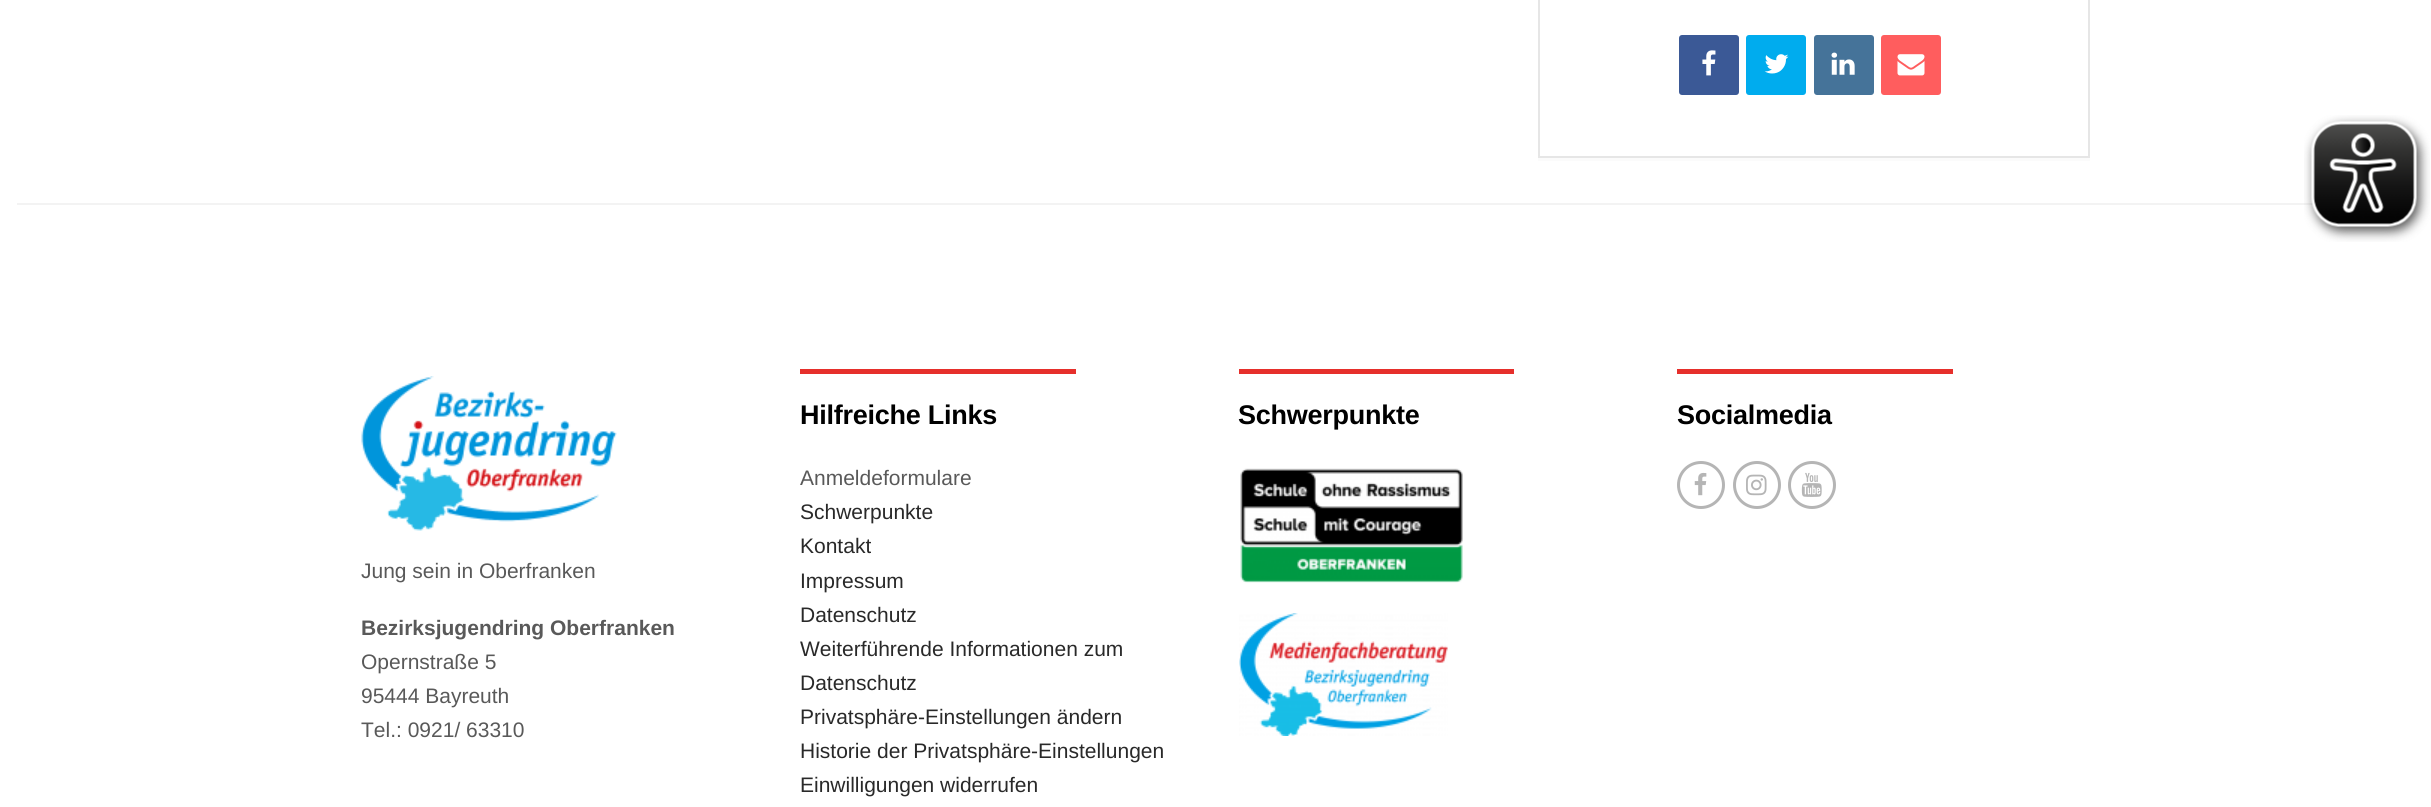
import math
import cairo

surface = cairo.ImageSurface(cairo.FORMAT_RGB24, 2431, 807)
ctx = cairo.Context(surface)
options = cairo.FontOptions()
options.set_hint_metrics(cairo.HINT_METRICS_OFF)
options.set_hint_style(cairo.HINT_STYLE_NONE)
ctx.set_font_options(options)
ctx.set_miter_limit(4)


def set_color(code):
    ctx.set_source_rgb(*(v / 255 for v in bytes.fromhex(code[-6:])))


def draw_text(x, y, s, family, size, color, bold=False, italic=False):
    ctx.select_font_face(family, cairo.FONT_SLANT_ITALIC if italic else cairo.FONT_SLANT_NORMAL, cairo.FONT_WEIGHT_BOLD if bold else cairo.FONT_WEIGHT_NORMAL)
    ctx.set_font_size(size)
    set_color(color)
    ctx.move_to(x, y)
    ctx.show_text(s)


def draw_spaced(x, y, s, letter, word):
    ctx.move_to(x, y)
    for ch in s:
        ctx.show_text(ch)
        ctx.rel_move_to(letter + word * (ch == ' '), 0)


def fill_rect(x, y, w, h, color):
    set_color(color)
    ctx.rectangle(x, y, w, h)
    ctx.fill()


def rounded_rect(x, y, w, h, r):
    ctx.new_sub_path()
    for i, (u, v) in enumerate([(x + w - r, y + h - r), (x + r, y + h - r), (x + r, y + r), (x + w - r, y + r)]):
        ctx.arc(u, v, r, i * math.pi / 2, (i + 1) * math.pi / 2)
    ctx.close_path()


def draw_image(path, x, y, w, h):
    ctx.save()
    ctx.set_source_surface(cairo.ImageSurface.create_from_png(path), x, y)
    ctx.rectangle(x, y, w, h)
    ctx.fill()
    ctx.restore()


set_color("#ffffff")
ctx.paint()
fill_rect(17, 203, 2400, 2, "#f3f3f3")
draw_image("assets/img1.png", 2304, 115, 126, 127)
set_color("#fbfbfb")
ctx.new_path()
ctx.move_to(1538, 158)
ctx.line_to(1538, 161)
ctx.line_to(2090, 161)
ctx.line_to(2090, -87)
ctx.line_to(2090, 158)
ctx.close_path()
ctx.fill()
ctx.rectangle(1539, -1, 550, 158)
set_color("#e6e6e6")
ctx.stroke()
set_color("#3b5996")
rounded_rect(1679, 35, 60, 60, 3)
ctx.fill()
draw_image("assets/img2.png", 1702, 50, 14, 26)
set_color("#00acee")
rounded_rect(1746, 35, 60, 60, 3)
ctx.fill()
draw_image("assets/img3.png", 1764, 54, 25, 20)
set_color("#457399")
rounded_rect(1814, 35, 60, 60, 3)
ctx.fill()
draw_image("assets/img4.png", 1831, 52, 24, 23)
set_color("#ff5d5e")
rounded_rect(1881, 35, 60, 60, 3)
ctx.fill()
draw_image("assets/img5.png", 1897, 54, 28, 22)
fill_rect(800, 369, 276, 5, "#e62f2b")
ctx.select_font_face("Liberation Sans", cairo.FONT_SLANT_NORMAL, cairo.FONT_WEIGHT_BOLD)
ctx.set_font_size(27)
set_color("#000000")
draw_spaced(800, 424, "Hilfreiche Links", -0.25, 0)
draw_text(800, 485, "Anmeldeformulare", "Liberation Sans", 21, "#595959")
draw_text(800, 519, "Schwerpunkte", "Liberation Sans", 21, "#292929")
draw_text(800, 553, "Kontakt", "Liberation Sans", 21, "#292929")
draw_text(800, 588, "Impressum", "Liberation Sans", 21, "#292929")
draw_text(800, 622, "Datenschutz", "Liberation Sans", 21, "#292929")
draw_text(800, 656, "Weiterführende Informationen zum", "Liberation Sans", 21, "#292929")
draw_text(800, 690, "Datenschutz", "Liberation Sans", 21, "#292929")
draw_text(800, 724, "Privatsphäre-Einstellungen ändern", "Liberation Sans", 21, "#292929")
draw_text(800, 758, "Historie der Privatsphäre-Einstellungen", "Liberation Sans", 21, "#292929")
draw_text(800, 792, "Einwilligungen widerrufen", "Liberation Sans", 21, "#292929")
fill_rect(1239, 369, 275, 5, "#e62f2b")
ctx.select_font_face("Liberation Sans", cairo.FONT_SLANT_NORMAL, cairo.FONT_WEIGHT_BOLD)
ctx.set_font_size(27)
set_color("#000000")
draw_spaced(1238, 424, "Schwerpunkte", -0.25, 0)
draw_image("assets/img6.png", 1240, 468, 223, 115)
draw_image("assets/img7.png", 1239, 613, 209, 123)
fill_rect(1677, 369, 276, 5, "#e62f2b")
set_color("#000000")
draw_spaced(1677, 424, "Socialmedia", -0.25, 0)
ctx.new_path()
ctx.arc(1701, 485, 22.5, 0, 2 * math.pi)
set_color("#b5b5b5")
ctx.set_line_width(3)
ctx.stroke()
draw_image("assets/img8.png", 1694, 472, 13, 24)
ctx.arc(1757, 485, 22.5, 0, 2 * math.pi)
ctx.stroke()
draw_image("assets/img9.png", 1746, 474, 21, 22)
ctx.arc(1812, 485, 22.5, 0, 2 * math.pi)
ctx.stroke()
draw_image("assets/img10.png", 1801, 472, 21, 25)
draw_image("assets/img11.png", 361, 376, 256, 155)
draw_text(361, 578, "Jung sein in Oberfranken", "Liberation Sans", 21, "#595959")
draw_text(361, 635, "Bezirksjugendring Oberfranken", "Liberation Sans", 21, "#595959", bold=True)
draw_text(361, 669, "Opernstraße 5", "Liberation Sans", 21, "#595959")
draw_text(361, 703, "95444 Bayreuth", "Liberation Sans", 21, "#595959")
draw_text(361, 737, "Tel.: 0921/ 63310", "Liberation Sans", 21, "#595959")
surface.write_to_png("output.png")
